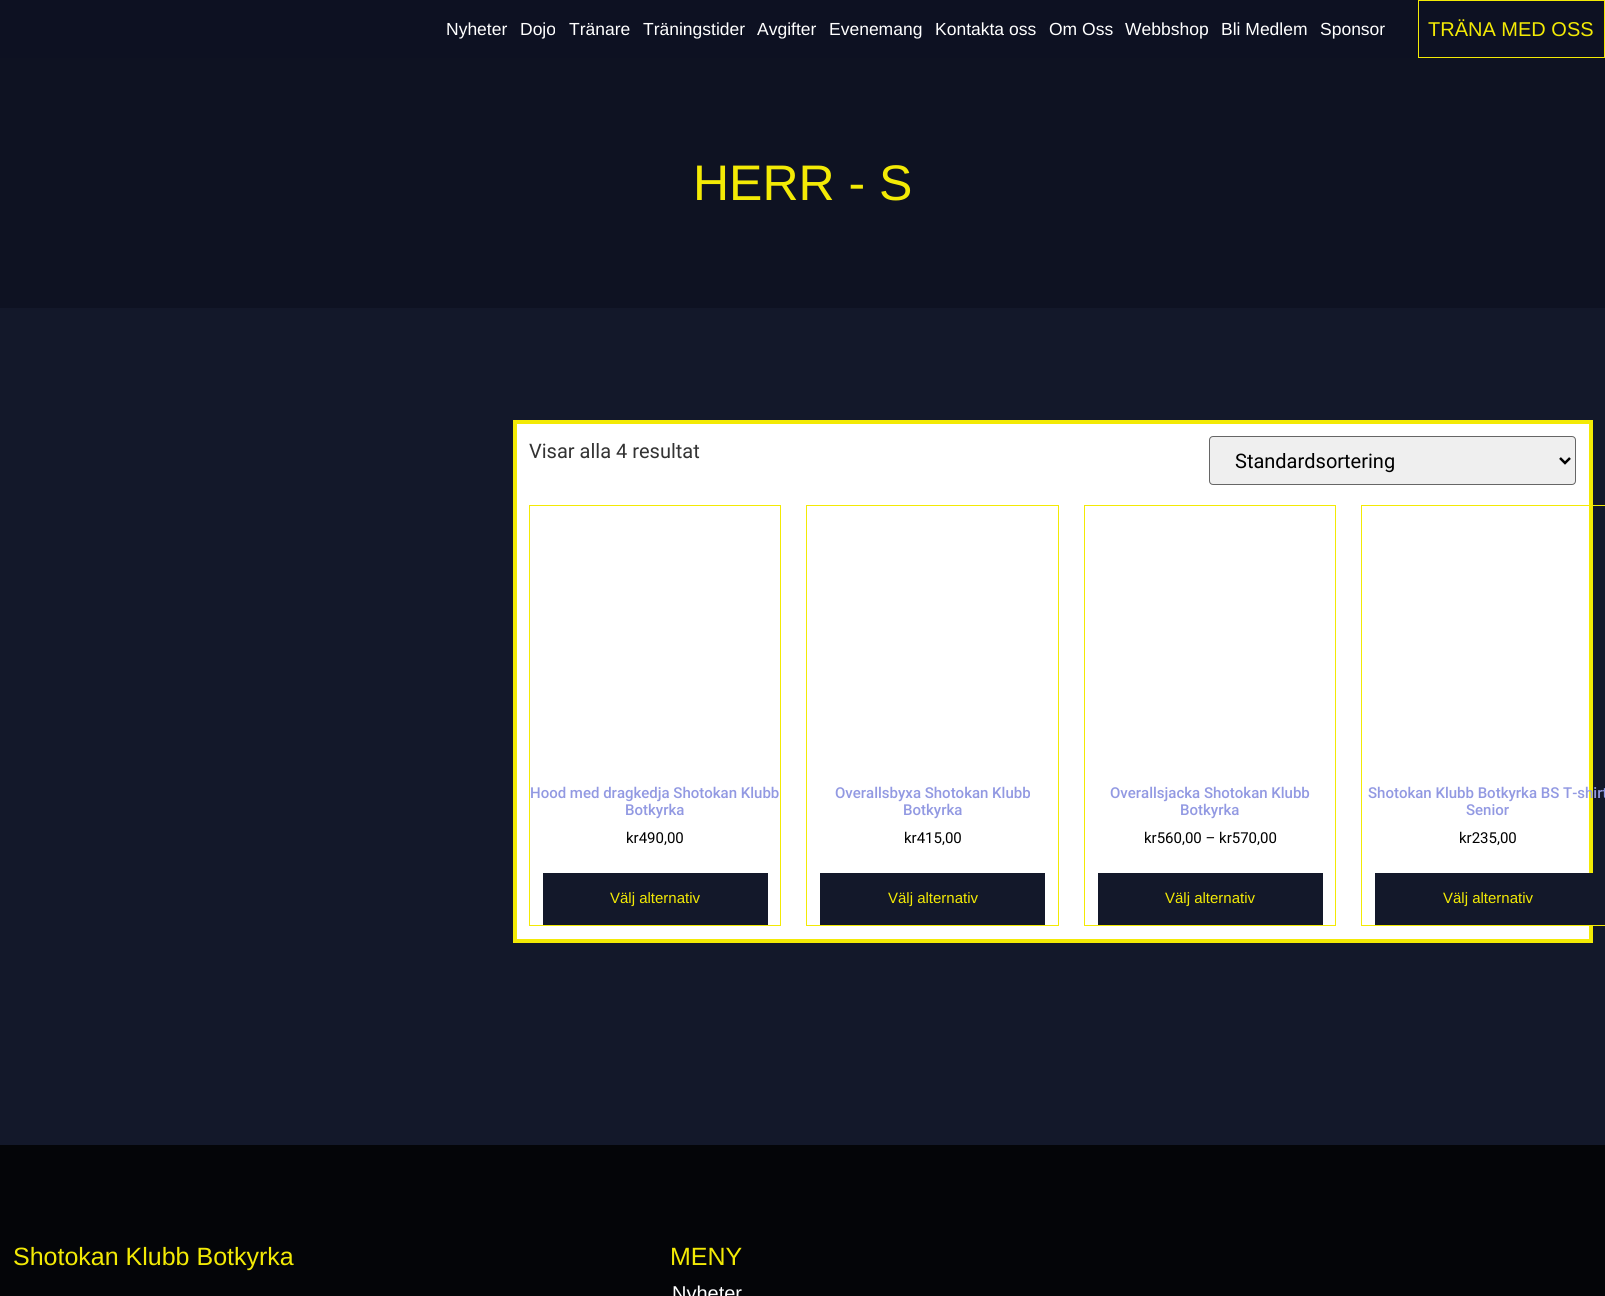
import math
import cairo

surface = cairo.ImageSurface(cairo.FORMAT_RGB24, 1605, 1296)
ctx = cairo.Context(surface)
options = cairo.FontOptions()
options.set_hint_metrics(cairo.HINT_METRICS_OFF)
options.set_hint_style(cairo.HINT_STYLE_NONE)
ctx.set_font_options(options)
ctx.set_miter_limit(4)


def set_color(code):
    ctx.set_source_rgb(*(v / 255 for v in bytes.fromhex(code[-6:])))


def draw_text(x, y, s, family, size, color, bold=False, italic=False):
    ctx.select_font_face(family, cairo.FONT_SLANT_ITALIC if italic else cairo.FONT_SLANT_NORMAL, cairo.FONT_WEIGHT_BOLD if bold else cairo.FONT_WEIGHT_NORMAL)
    ctx.set_font_size(size)
    set_color(color)
    ctx.move_to(x, y)
    ctx.show_text(s)


def fill_rect(x, y, w, h, color):
    set_color(color)
    ctx.rectangle(x, y, w, h)
    ctx.fill()


def rounded_rect(x, y, w, h, r):
    ctx.new_sub_path()
    for i, (u, v) in enumerate([(x + w - r, y + h - r), (x + r, y + h - r), (x + r, y + r), (x + w - r, y + r)]):
        ctx.arc(u, v, r, i * math.pi / 2, (i + 1) * math.pi / 2)
    ctx.close_path()


set_color("#13182a")
ctx.paint()
fill_rect(0, 0, 1604, 58, "#0d1122")
draw_text(446, 35, "Nyheter", "Liberation Sans", 17.5, "#ffffff")
draw_text(520, 35, "Dojo", "Liberation Sans", 17.5, "#ffffff")
draw_text(569, 35, "Tränare", "Liberation Sans", 17.5, "#ffffff")
draw_text(643, 35, "Träningstider", "Liberation Sans", 17.5, "#ffffff")
draw_text(757, 35, "Avgifter", "Liberation Sans", 17.5, "#ffffff")
draw_text(829, 35, "Evenemang", "Liberation Sans", 17.5, "#ffffff")
draw_text(935, 35, "Kontakta oss", "Liberation Sans", 17.5, "#ffffff")
draw_text(1049, 35, "Om Oss", "Liberation Sans", 17.5, "#ffffff")
draw_text(1125, 35, "Webbshop", "Liberation Sans", 17.5, "#ffffff")
draw_text(1221, 35, "Bli Medlem", "Liberation Sans", 17.5, "#ffffff")
draw_text(1320, 35, "Sponsor", "Liberation Sans", 17.5, "#ffffff")
ctx.rectangle(1418.5, 0.5, 186, 57)
set_color("#f3ea05")
ctx.set_line_width(1)
ctx.stroke()
draw_text(1428, 36, "TRÄNA MED OSS", "Liberation Sans", 20, "#f3ea05")
fill_rect(0, 58, 1605, 250, "#0e1222")
draw_text(693, 200, "HERR - S", "Liberation Sans", 50, "#f3ea05")
set_color("#ffffff")
ctx.rectangle(515, 422, 1076, 519)
ctx.fill_preserve()
set_color("#f3ea05")
ctx.set_line_width(4)
ctx.stroke()
draw_text(529, 458, "Visar alla 4 resultat", "Roboto", 20, "#333333")
set_color("#efefef")
rounded_rect(1209.5, 436.5, 366, 48, 3.5)
ctx.fill_preserve()
set_color("#666666")
ctx.set_line_width(1)
ctx.stroke()
ctx.new_path()
ctx.move_to(1560, 458)
ctx.line_to(1565, 463)
ctx.line_to(1570, 458)
set_color("#000000")
ctx.set_line_width(2.5)
ctx.stroke()
draw_text(1235, 468, "Standardsortering", "Roboto", 20, "#000000")
ctx.rectangle(529.5, 505.5, 251, 420)
set_color("#f3ea05")
ctx.set_line_width(1)
ctx.stroke()
draw_text(530, 798, "Hood med dragkedja Shotokan Klubb", "Roboto Medium", 15, "#9299e2")
draw_text(625, 815, "Botkyrka", "Roboto Medium", 15, "#9299e2")
draw_text(626, 843, "kr490,00", "Roboto", 15, "#000000")
fill_rect(543, 873, 225, 52, "#13182a")
draw_text(610, 903, "Välj alternativ", "Liberation Sans", 15, "#f3ea05")
ctx.rectangle(806.5, 505.5, 252, 420)
ctx.stroke()
draw_text(835, 798, "Overallsbyxa Shotokan Klubb", "Roboto Medium", 15, "#9299e2")
draw_text(903, 815, "Botkyrka", "Roboto Medium", 15, "#9299e2")
draw_text(904, 843, "kr415,00", "Roboto", 15, "#000000")
fill_rect(820, 873, 225, 52, "#13182a")
draw_text(888, 903, "Välj alternativ", "Liberation Sans", 15, "#f3ea05")
ctx.rectangle(1084.5, 505.5, 251, 420)
ctx.stroke()
draw_text(1110, 798, "Overallsjacka Shotokan Klubb", "Roboto Medium", 15, "#9299e2")
draw_text(1180, 815, "Botkyrka", "Roboto Medium", 15, "#9299e2")
draw_text(1144, 843, "kr560,00 – kr570,00", "Roboto", 15, "#000000")
fill_rect(1098, 873, 225, 52, "#13182a")
draw_text(1165, 903, "Välj alternativ", "Liberation Sans", 15, "#f3ea05")
ctx.rectangle(1361.5, 505.5, 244, 420)
ctx.stroke()
draw_text(1368, 798, "Shotokan Klubb Botkyrka BS T-shirt", "Roboto Medium", 15, "#9299e2")
draw_text(1466, 815, "Senior", "Roboto Medium", 15, "#9299e2")
draw_text(1459, 843, "kr235,00", "Roboto", 15, "#000000")
fill_rect(1375, 873, 218, 52, "#13182a")
draw_text(1443, 903, "Välj alternativ", "Liberation Sans", 15, "#f3ea05")
fill_rect(0, 1145, 1605, 151, "#040508")
draw_text(13, 1265, "Shotokan Klubb Botkyrka", "Liberation Sans", 25, "#f3ea05")
draw_text(670, 1265, "MENY", "Liberation Sans", 25, "#f3ea05")
draw_text(672, 1300, "Nyheter", "Liberation Sans", 20, "#ffffff")
surface.write_to_png("output.png")
